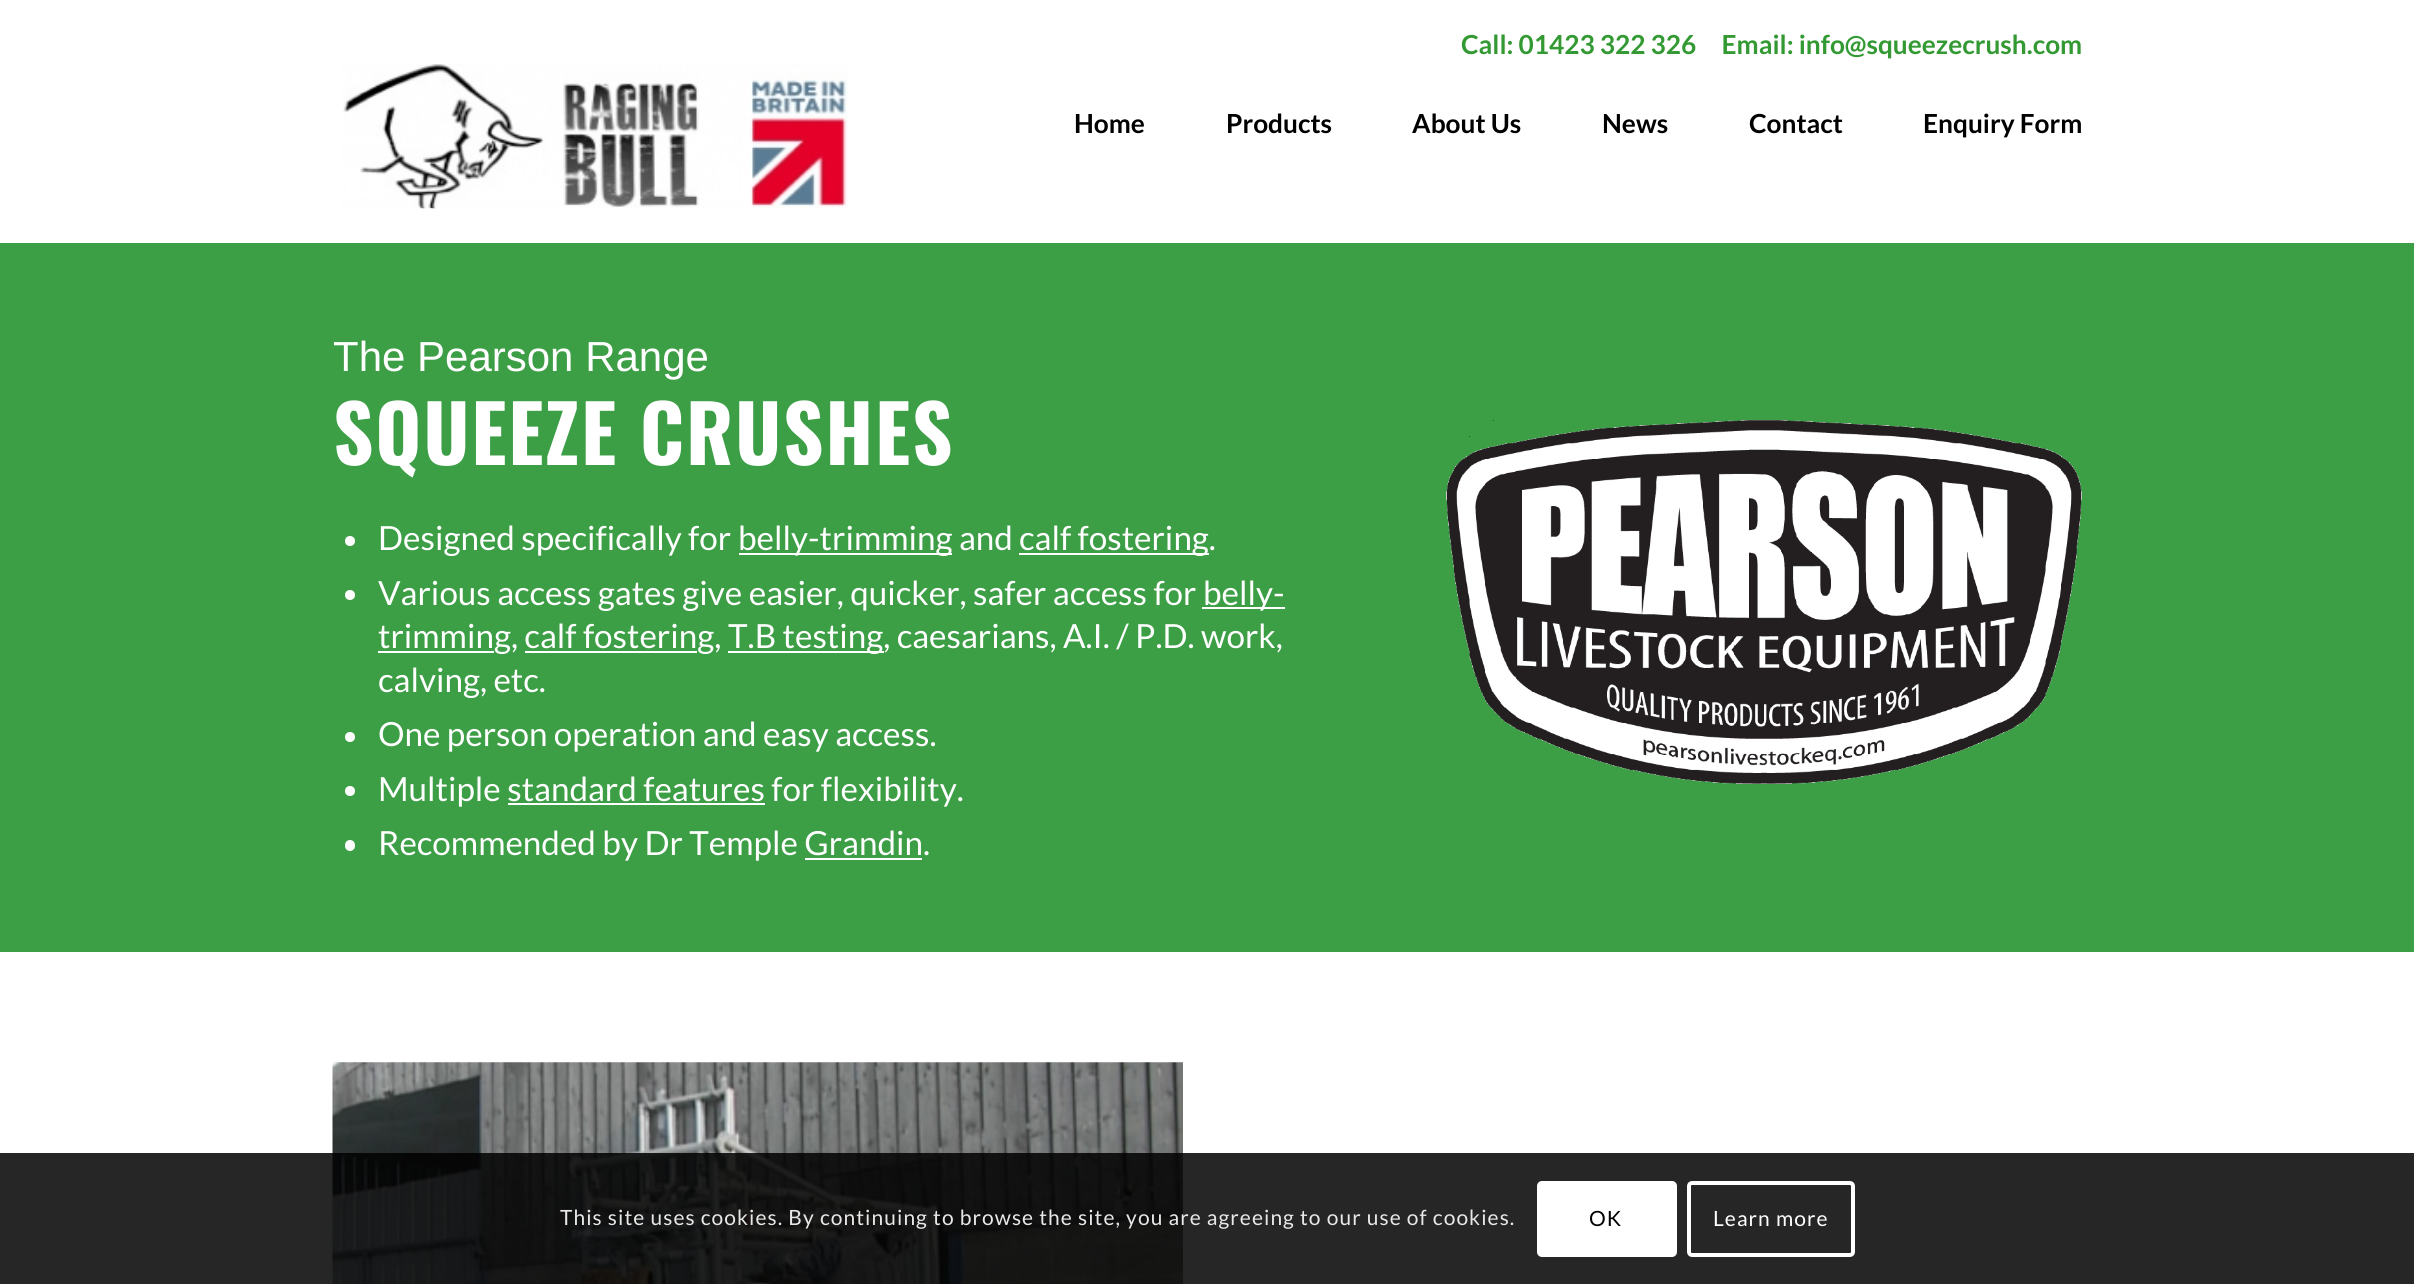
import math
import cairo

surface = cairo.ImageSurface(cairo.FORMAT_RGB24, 2414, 1284)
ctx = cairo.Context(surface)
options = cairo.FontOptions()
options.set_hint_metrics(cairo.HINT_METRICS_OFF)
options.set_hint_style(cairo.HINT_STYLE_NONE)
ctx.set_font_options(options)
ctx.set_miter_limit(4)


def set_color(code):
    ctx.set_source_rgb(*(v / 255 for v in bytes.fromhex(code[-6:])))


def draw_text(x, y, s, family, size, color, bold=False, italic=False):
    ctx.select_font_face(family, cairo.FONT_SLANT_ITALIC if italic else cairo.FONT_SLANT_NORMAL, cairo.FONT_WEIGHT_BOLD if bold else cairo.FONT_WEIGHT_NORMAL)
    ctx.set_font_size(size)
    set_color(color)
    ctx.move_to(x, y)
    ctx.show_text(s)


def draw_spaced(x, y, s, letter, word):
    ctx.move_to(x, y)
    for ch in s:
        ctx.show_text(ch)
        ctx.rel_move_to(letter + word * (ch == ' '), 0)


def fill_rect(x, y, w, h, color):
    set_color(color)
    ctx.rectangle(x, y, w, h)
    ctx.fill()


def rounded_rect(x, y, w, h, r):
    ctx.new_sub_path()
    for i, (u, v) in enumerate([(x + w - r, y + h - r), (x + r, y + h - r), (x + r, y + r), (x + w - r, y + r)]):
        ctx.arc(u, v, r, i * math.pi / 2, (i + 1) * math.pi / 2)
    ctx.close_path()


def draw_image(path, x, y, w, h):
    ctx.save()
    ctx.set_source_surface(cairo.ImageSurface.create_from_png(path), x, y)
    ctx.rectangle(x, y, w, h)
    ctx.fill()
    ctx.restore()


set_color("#ffffff")
ctx.paint()
draw_text(1461, 54, "Call: 01423 322 326     Email: info@squeezecrush.com", "Lato", 26.25, "#339933", bold=True)
draw_image("assets/img1.png", 342, 64, 506, 145)
draw_text(1074, 133, "Home", "Lato", 26.25, "#000000", bold=True)
draw_text(1226, 133, "Products", "Lato", 26.25, "#000000", bold=True)
draw_text(1412, 133, "About Us", "Lato", 26.25, "#000000", bold=True)
draw_text(1602, 133, "News", "Lato", 26.25, "#000000", bold=True)
draw_text(1749, 133, "Contact", "Lato", 26.25, "#000000", bold=True)
draw_text(1923, 133, "Enquiry Form", "Lato", 26.25, "#000000", bold=True)
fill_rect(0, 243, 2414, 709, "#3c9e45")
draw_text(333, 371, "The Pearson Range", "Liberation Sans", 42, "#ffffff")
ctx.select_font_face("Oswald", cairo.FONT_SLANT_NORMAL, cairo.FONT_WEIGHT_BOLD)
ctx.set_font_size(78.75)
draw_spaced(333, 465, "SQUEEZE CRUSHES", 1.75, 0)
ctx.new_path()
ctx.arc(350, 541, 5, 0, 2 * math.pi)
ctx.fill()
draw_text(378, 550, "Designed specifically for", "Lato", 33.25, "#ffffff")
fill_rect(739, 553, 213, 2, "#ffffff")
draw_text(738, 550, "belly-trimming and", "Lato", 33.25, "#ffffff")
fill_rect(1019, 553, 190, 2, "#ffffff")
draw_text(1019, 550, "calf fostering.", "Lato", 33.25, "#ffffff")
ctx.new_path()
ctx.arc(350, 595, 5, 0, 2 * math.pi)
ctx.fill()
draw_text(378, 605, "Various access gates give easier, quicker, safer access for", "Lato", 33.25, "#ffffff")
fill_rect(1202, 607, 83, 2, "#ffffff")
draw_text(1203, 605, "belly-", "Lato", 33.25, "#ffffff")
fill_rect(378, 651, 116, 2, "#ffffff")
draw_text(378, 648, "trimming, calf fostering,", "Lato", 33.25, "#ffffff")
fill_rect(728, 651, 156, 2, "#ffffff")
draw_text(728, 648, "T.B testing, caesarians, A.I. / P.D. work,", "Lato", 33.25, "#ffffff")
fill_rect(525, 651, 172, 2, "#ffffff")
draw_text(378, 692, "calving, etc.", "Lato", 33.25, "#ffffff")
ctx.new_path()
ctx.arc(350, 737, 5, 0, 2 * math.pi)
ctx.fill()
draw_text(378, 746, "One person operation and easy access.", "Lato", 33.25, "#ffffff")
ctx.new_path()
ctx.arc(350, 791, 5, 0, 2 * math.pi)
ctx.fill()
draw_text(378, 801, "Multiple standard features for flexibility.", "Lato", 33.25, "#ffffff")
fill_rect(508, 803, 257, 2, "#ffffff")
rounded_rect(345, 840, 10, 11, 5)
ctx.fill()
draw_text(378, 855, "Recommended by Dr Temple Grandin.", "Lato", 33.25, "#ffffff")
fill_rect(805, 858, 117, 2, "#ffffff")
draw_image("assets/img2.png", 1446, 420, 636, 364)
draw_image("assets/img3.png", 332, 1062, 851, 222)
ctx.set_source_rgba(0, 0, 0, 0.85)
ctx.rectangle(0, 1153, 2414, 131)
ctx.fill()
ctx.set_font_size(21)
set_color("#e8e8e8")
draw_spaced(560, 1225, "This site uses cookies. By continuing to browse the site, you are agreeing to our use of cookies.", 1.05, 0)
set_color("#ffffff")
rounded_rect(1537, 1181, 140, 76, 5)
ctx.fill()
set_color("#000000")
draw_spaced(1589, 1226, "OK", 1.05, 0)
rounded_rect(1689, 1183, 164, 72, 3)
set_color("#ffffff")
ctx.set_line_width(4)
ctx.stroke()
draw_spaced(1713, 1226, "Learn more", 1.05, 0)
surface.write_to_png("output.png")
